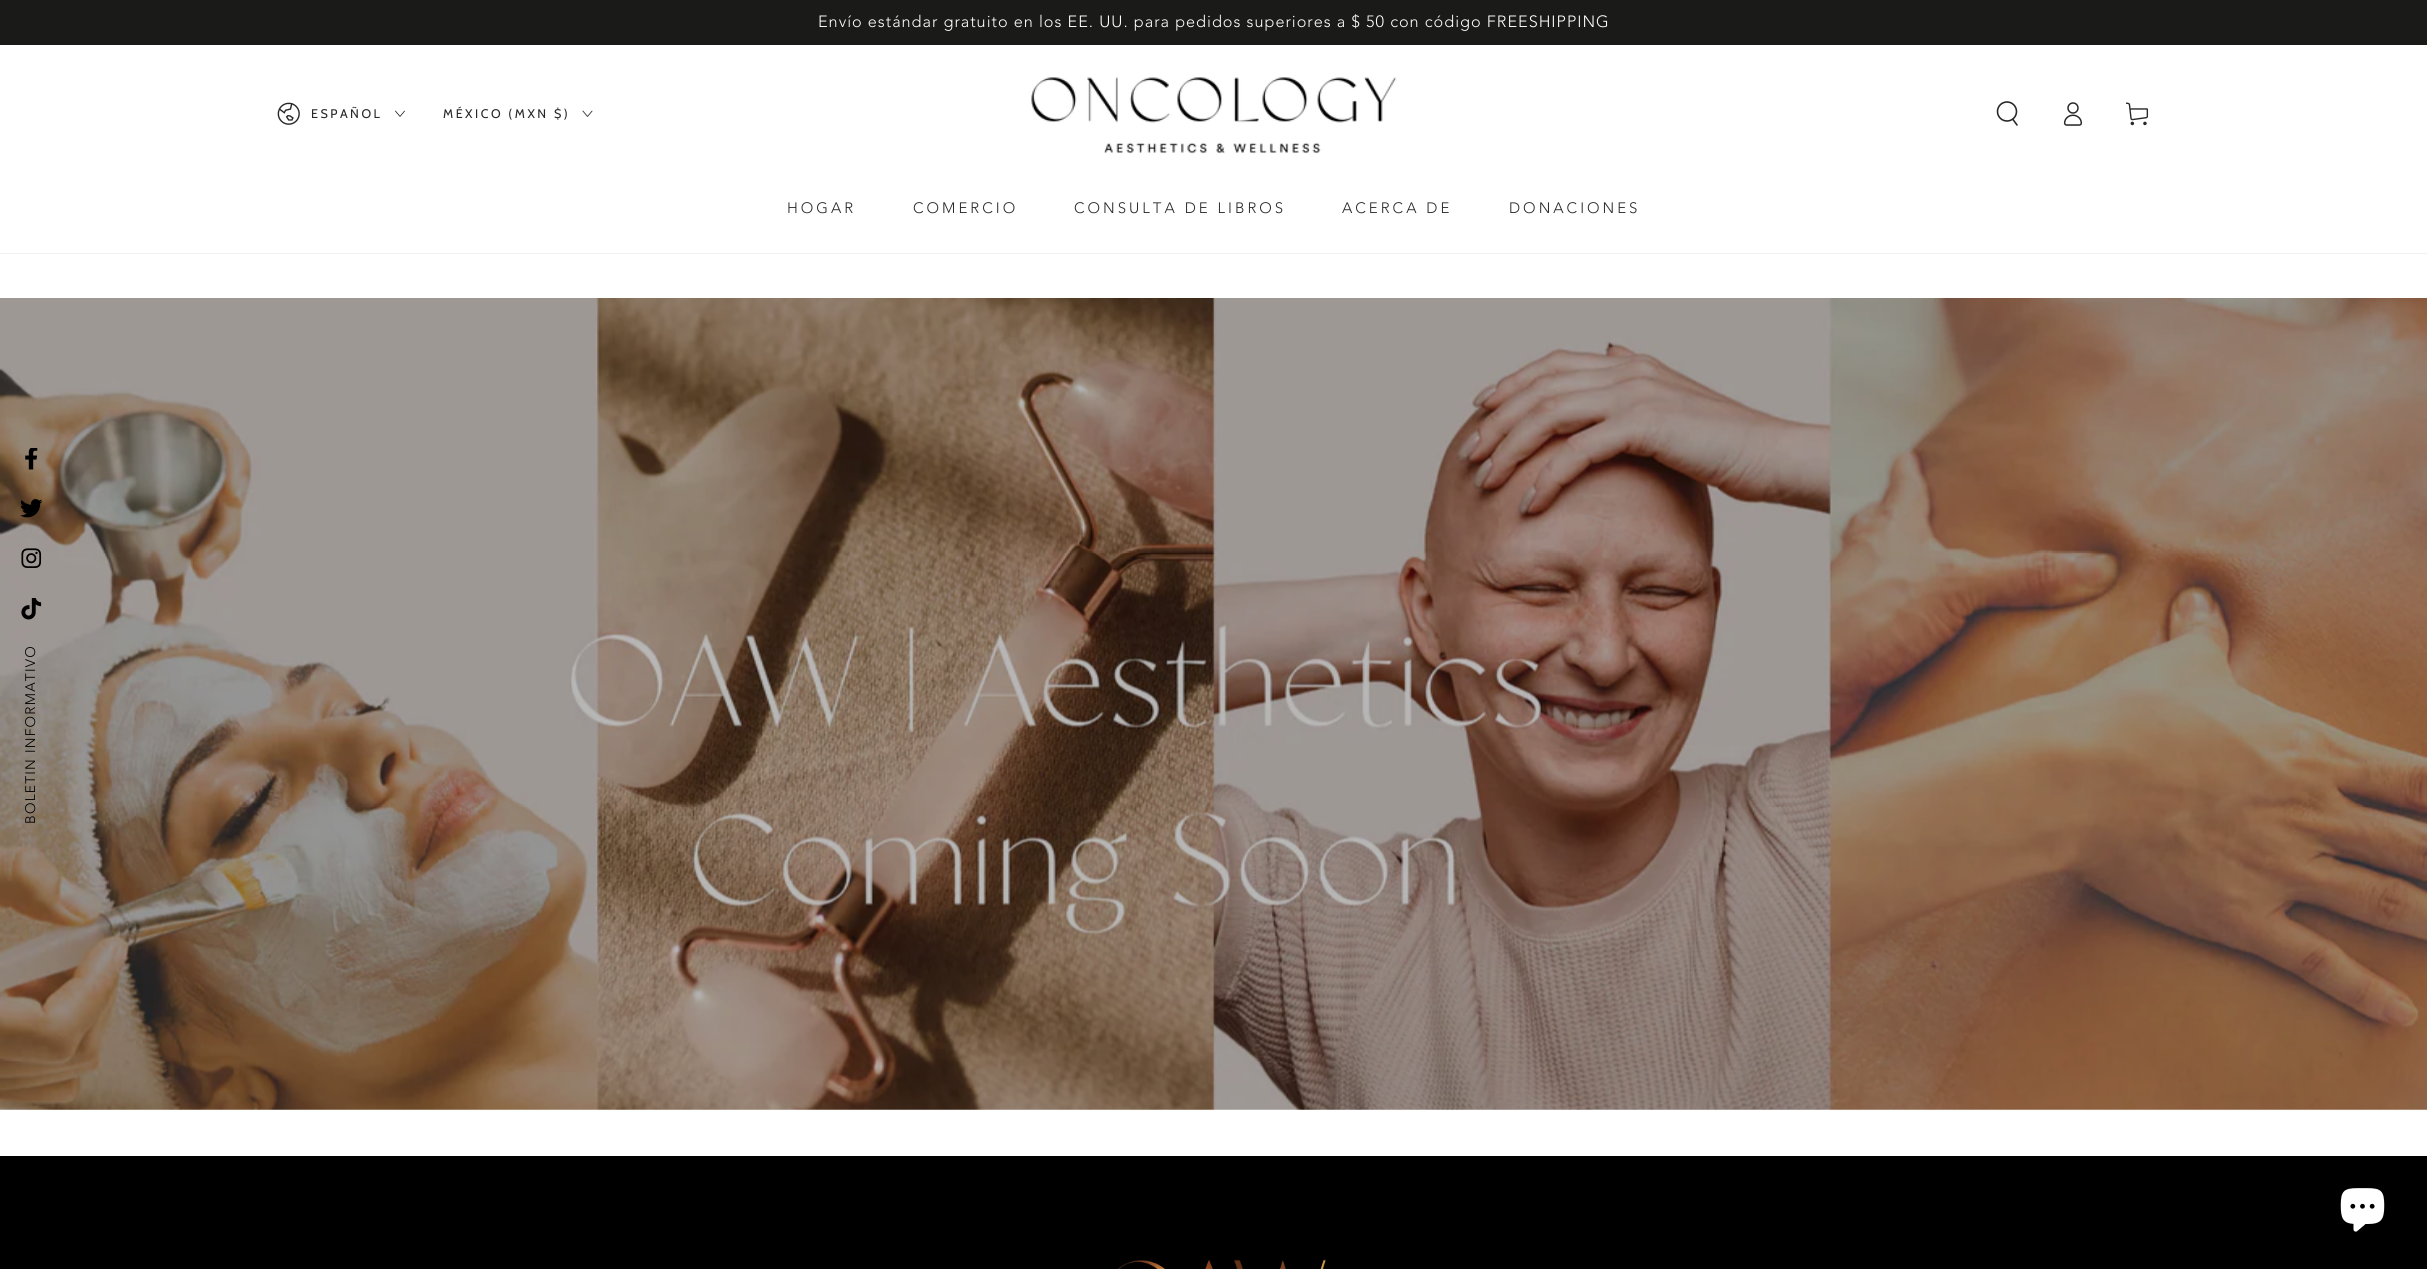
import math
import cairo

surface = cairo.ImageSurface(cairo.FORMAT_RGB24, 2427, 1269)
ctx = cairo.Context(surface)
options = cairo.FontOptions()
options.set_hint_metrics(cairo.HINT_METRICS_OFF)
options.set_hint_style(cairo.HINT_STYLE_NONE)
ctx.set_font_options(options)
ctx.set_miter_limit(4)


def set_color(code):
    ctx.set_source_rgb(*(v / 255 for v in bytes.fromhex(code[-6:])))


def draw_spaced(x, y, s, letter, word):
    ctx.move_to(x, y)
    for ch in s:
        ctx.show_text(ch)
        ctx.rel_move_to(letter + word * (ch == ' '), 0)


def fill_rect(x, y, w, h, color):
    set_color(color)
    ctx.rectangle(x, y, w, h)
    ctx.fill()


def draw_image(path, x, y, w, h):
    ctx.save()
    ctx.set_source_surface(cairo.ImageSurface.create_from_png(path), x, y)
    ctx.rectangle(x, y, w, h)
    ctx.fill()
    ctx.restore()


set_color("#ffffff")
ctx.paint()
fill_rect(0, 0, 2427, 45, "#1a1b18")
ctx.select_font_face("Avenir Light")
ctx.set_font_size(16.25)
set_color("#ffffff")
draw_spaced(818, 27, "Envío estándar gratuito en los EE. UU. para pedidos superiores a $ 50 con código FREESHIPPING", 0.98, 0)
set_color("#f2f2f4")
ctx.new_path()
ctx.move_to(0, 252)
ctx.line_to(0, 254)
ctx.line_to(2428, 254)
ctx.line_to(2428, 46)
ctx.line_to(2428, 252)
ctx.close_path()
ctx.fill()
draw_image("assets/img1.png", 277, 102, 23, 23)
ctx.select_font_face("Cabin")
ctx.set_font_size(12.5)
set_color("#282828")
draw_spaced(311, 118, "ESPAÑOL", 2.5, 0)
draw_image("assets/img2.png", 395, 110, 10, 7)
draw_spaced(443, 118, "MÉXICO (MXN $)", 2.5, 0)
draw_image("assets/img3.png", 582, 110, 11, 7)
draw_image("assets/img4.png", 1031, 77, 366, 77)
ctx.arc(2007, 111.5, 9.5, 0, 2 * math.pi)
ctx.set_line_width(1.6)
ctx.stroke()
ctx.new_path()
ctx.move_to(2013, 119.5)
ctx.line_to(2017, 125)
ctx.set_line_cap(cairo.LINE_CAP_ROUND)
ctx.stroke()
draw_image("assets/img5.png", 2063, 102, 19, 24)
draw_image("assets/img6.png", 2126, 102, 23, 24)
ctx.select_font_face("Avenir Light")
ctx.set_font_size(15)
draw_spaced(787, 213, "HOGAR", 3, 0)
draw_spaced(913, 213, "COMERCIO", 3, 0)
draw_spaced(1074, 213, "CONSULTA DE LIBROS", 3, 0)
draw_spaced(1342, 213, "ACERCA DE", 3, 0)
draw_spaced(1509, 213, "DONACIONES", 3, 0)
fill_rect(0, 252, 2427, 1, "#ffffff")
draw_image("assets/img7.png", 0, 298, 2427, 812)
fill_rect(0, 1156, 2427, 113, "#000000")
draw_image("assets/img8.png", 1118, 1259, 208, 10)
draw_image("assets/img9.png", 25, 448, 13, 22)
draw_image("assets/img10.png", 20, 499, 23, 19)
draw_image("assets/img11.png", 21, 548, 21, 20)
draw_image("assets/img12.png", 21, 598, 21, 22)
ctx.set_font_size(13.75)
ctx.save()
ctx.translate(35, 824)
ctx.rotate(-90 * math.pi / 180)
draw_spaced(0, 0, "BOLETIN INFORMATIVO", 1.25, 0)
ctx.restore()
draw_image("assets/img13.png", 2340, 1188, 45, 44)
surface.write_to_png("output.png")
